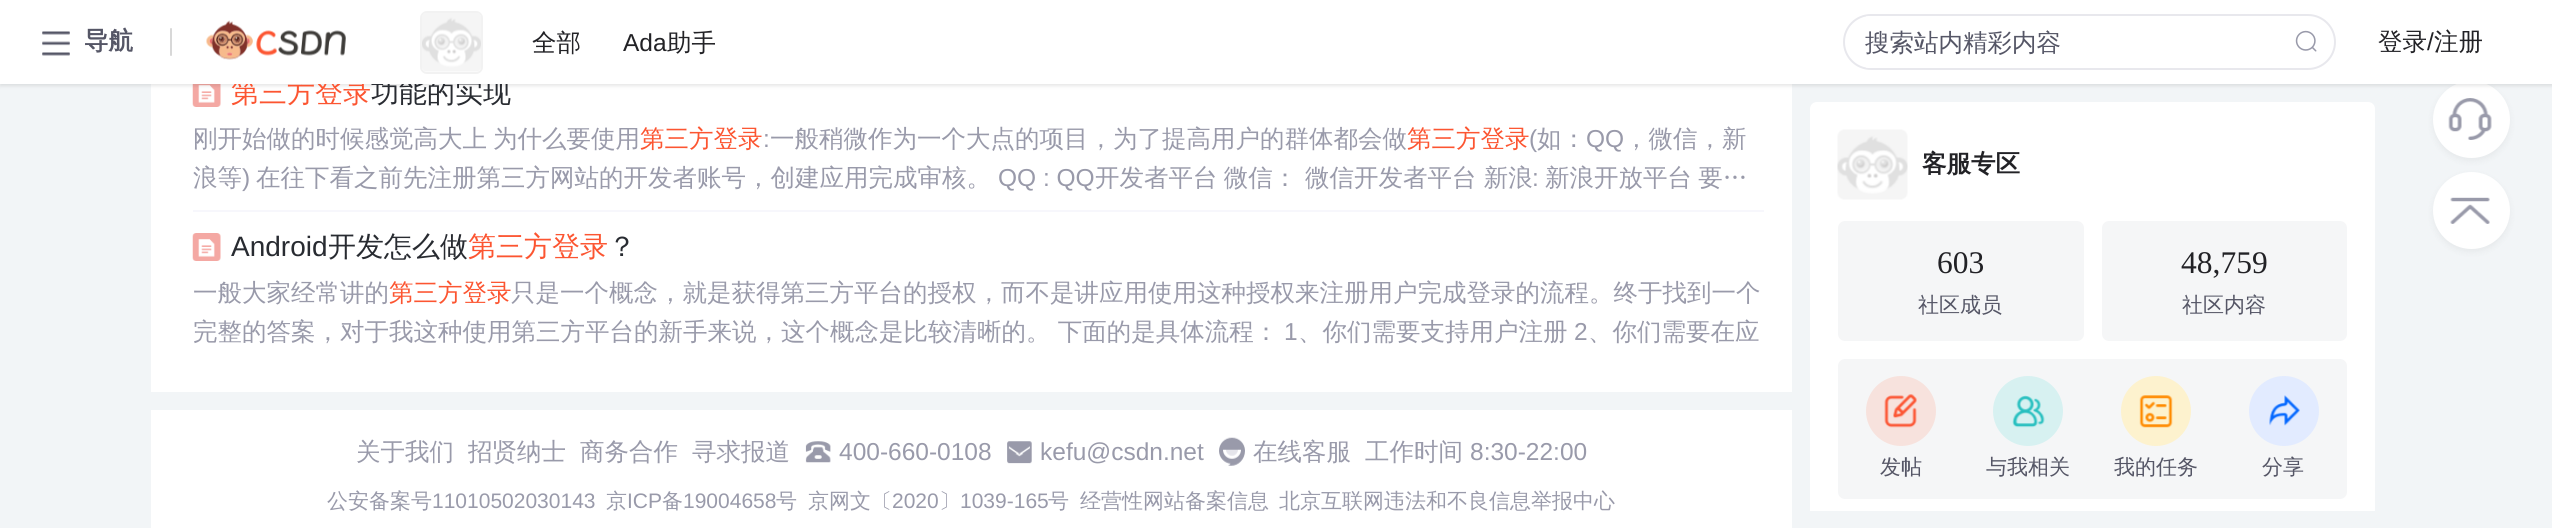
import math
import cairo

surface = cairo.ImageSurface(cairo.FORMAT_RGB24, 2552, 528)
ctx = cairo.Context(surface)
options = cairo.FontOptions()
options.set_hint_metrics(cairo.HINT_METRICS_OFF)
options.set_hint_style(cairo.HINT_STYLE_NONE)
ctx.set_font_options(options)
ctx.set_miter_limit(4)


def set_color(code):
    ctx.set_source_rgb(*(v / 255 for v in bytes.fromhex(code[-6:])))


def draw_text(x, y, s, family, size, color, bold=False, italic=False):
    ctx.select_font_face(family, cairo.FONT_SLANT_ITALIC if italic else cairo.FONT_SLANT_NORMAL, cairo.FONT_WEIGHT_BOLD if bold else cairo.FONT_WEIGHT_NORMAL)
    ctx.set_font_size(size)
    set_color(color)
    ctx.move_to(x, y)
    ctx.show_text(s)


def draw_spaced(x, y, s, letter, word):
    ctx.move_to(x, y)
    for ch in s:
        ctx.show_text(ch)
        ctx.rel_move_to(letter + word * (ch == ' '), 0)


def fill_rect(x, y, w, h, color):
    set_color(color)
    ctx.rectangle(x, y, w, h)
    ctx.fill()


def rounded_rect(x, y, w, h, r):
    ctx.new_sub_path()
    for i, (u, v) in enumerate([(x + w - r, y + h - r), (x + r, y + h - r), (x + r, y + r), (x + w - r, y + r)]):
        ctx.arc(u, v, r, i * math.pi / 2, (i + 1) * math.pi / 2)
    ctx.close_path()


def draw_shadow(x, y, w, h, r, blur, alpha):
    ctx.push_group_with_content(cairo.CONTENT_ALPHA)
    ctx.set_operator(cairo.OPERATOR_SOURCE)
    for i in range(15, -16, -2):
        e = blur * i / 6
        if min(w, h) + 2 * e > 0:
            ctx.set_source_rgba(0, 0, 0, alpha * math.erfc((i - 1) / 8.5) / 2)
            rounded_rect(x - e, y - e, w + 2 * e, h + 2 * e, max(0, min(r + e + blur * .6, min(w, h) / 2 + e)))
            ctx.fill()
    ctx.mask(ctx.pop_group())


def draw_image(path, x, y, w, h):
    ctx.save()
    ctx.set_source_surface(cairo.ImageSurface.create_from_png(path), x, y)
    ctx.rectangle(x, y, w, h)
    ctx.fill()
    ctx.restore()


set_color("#f2f5f7")
ctx.paint()
fill_rect(151, 84, 1641, 308, "#ffffff")
draw_image("assets/img5.png", 192, 84, 29, 23)
set_color("#000000")
draw_shadow(2433, 84, 77, 77, 38.5, 3.5, 0.05)
set_color("#ffffff")
ctx.arc(2471.5, 119.5, 38.5, 0, 2 * math.pi)
ctx.fill()
set_color("#000000")
draw_shadow(0, 2, 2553, 84, 0, 2, 0.1)
draw_text(231, 102, "第三方登录", "WenQuanYi Zen Hei Medium", 28, "#fc5531")
draw_text(371, 102, "功能的实现", "WenQuanYi Zen Hei Medium", 28, "#282b31")
fill_rect(0, 0, 2552, 84, "#ffffff")
draw_image("assets/img1.png", 42, 31, 28, 25)
draw_text(84, 49, "导航", "WenQuanYi Zen Hei", 24.5, "#555666", bold=True)
set_color("#d8d8d8")
rounded_rect(170, 28, 2, 28, 1)
ctx.fill()
draw_image("assets/img2.png", 206, 20, 140, 40)
rounded_rect(421, 12, 61, 61, 6)
set_color("#f2f2f2")
ctx.stroke()
draw_image("assets/img3.png", 422, 13, 59, 59)
draw_text(532, 51, "全部", "WenQuanYi Zen Hei Medium", 24.5, "#222226")
draw_text(623, 51, "Ada", "Liberation Sans", 24.5, "#222226")
draw_text(667, 51, "助手", "WenQuanYi Zen Hei Medium", 24.5, "#222226")
rounded_rect(1844, 15, 491, 54, 27)
set_color("#e8e8ed")
ctx.stroke()
ctx.save()
rounded_rect(1845, 16, 490, 52, 26)
ctx.clip()
fill_rect(1866, 16, 423, 52, "#ffffff")
ctx.restore()
draw_text(1865, 51, "搜索站内精彩内容", "WenQuanYi Zen Hei Medium", 24.5, "#555666")
draw_image("assets/img4.png", 2295, 30, 22, 22)
draw_text(2378, 50, "登录", "WenQuanYi Zen Hei Medium", 24.5, "#222226")
draw_text(2427, 50, "/", "Liberation Sans", 24.5, "#222226")
draw_text(2434, 50, "注册", "WenQuanYi Zen Hei Medium", 24.5, "#222226")
fill_rect(193, 210, 1571, 2, "#f7f7fc")
draw_text(193, 147, "刚开始做的时候感觉高大上", "WenQuanYi Zen Hei Medium", 24.5, "#999aaa")
draw_text(493, 147, "为什么要使用", "WenQuanYi Zen Hei Medium", 24.5, "#999aaa")
draw_text(640, 147, "第三方登录", "WenQuanYi Zen Hei Medium", 24.5, "#fc5531")
draw_text(763, 147, ":", "Liberation Sans", 24.5, "#999aaa")
draw_text(770, 147, "一般稍微作为一个大点的项目，为了提高用户的群体都会做", "WenQuanYi Zen Hei Medium", 24.5, "#999aaa")
draw_text(1407, 147, "第三方登录", "WenQuanYi Zen Hei Medium", 24.5, "#fc5531")
draw_text(1529, 147, "(", "Liberation Sans", 24.5, "#999aaa")
draw_text(1537, 147, "如：", "WenQuanYi Zen Hei Medium", 24.5, "#999aaa")
draw_text(1586, 147, "QQ", "Liberation Sans", 24.5, "#999aaa")
draw_text(1624, 147, "，微信，新", "WenQuanYi Zen Hei Medium", 24.5, "#999aaa")
draw_text(193, 186, "浪等", "WenQuanYi Zen Hei Medium", 24.5, "#999aaa")
draw_text(242, 186, ")", "Liberation Sans", 24.5, "#999aaa")
draw_text(256, 186, "在往下看之前先注册第三方网站的开发者账号，创建应用完成审核。", "WenQuanYi Zen Hei Medium", 24.5, "#999aaa")
draw_text(998, 186, "QQ : QQ", "Liberation Sans", 24.5, "#999aaa")
ctx.select_font_face("WenQuanYi Zen Hei Medium")
draw_spaced(1095, 186, "开发者平台 微信：", 0, -1)
draw_text(1305, 186, "微信开发者平台 新浪", "WenQuanYi Zen Hei Medium", 24.5, "#999aaa")
draw_text(1532, 186, ":", "Liberation Sans", 24.5, "#999aaa")
ctx.select_font_face("WenQuanYi Zen Hei Medium")
draw_spaced(1545, 186, "新浪开放平台 要…", 0, -1)
draw_image("assets/img6.png", 192, 233, 29, 28)
draw_text(231, 256, "Android", "Liberation Sans", 28, "#282b31")
draw_text(328, 256, "开发怎么做", "WenQuanYi Zen Hei Medium", 28, "#282b31")
draw_text(468, 256, "第三方登录", "WenQuanYi Zen Hei Medium", 28, "#fc5531")
draw_text(608, 256, "？", "WenQuanYi Zen Hei Medium", 28, "#282b31")
draw_text(193, 301, "一般大家经常讲的", "WenQuanYi Zen Hei Medium", 24.5, "#999aaa")
draw_text(389, 301, "第三方登录", "WenQuanYi Zen Hei Medium", 24.5, "#fc5531")
draw_text(511, 301, "只是一个概念，就是获得第三方平台的授权，而不是讲应用使用这种授权来注册用户完成登录的流程。终于找到一个", "WenQuanYi Zen Hei Medium", 24.5, "#999aaa")
draw_text(193, 340, "完整的答案，对于我这种使用第三方平台的新手来说，这个概念是比较清晰的。 下面的是具体流程：", "WenQuanYi Zen Hei Medium", 24.5, "#999aaa")
draw_text(1284, 340, "1", "Liberation Sans", 24.5, "#999aaa")
draw_text(1298, 340, "、你们需要支持用户注册", "WenQuanYi Zen Hei Medium", 24.5, "#999aaa")
draw_text(1574, 340, "2", "Liberation Sans", 24.5, "#999aaa")
draw_text(1588, 340, "、你们需要在应", "WenQuanYi Zen Hei Medium", 24.5, "#999aaa")
fill_rect(151, 410, 1641, 118, "#ffffff")
draw_text(356, 460, "关于我们", "WenQuanYi Zen Hei Medium", 24.5, "#999aaa")
draw_text(468, 460, "招贤纳士", "WenQuanYi Zen Hei Medium", 24.5, "#999aaa")
draw_text(580, 460, "商务合作", "WenQuanYi Zen Hei Medium", 24.5, "#999aaa")
draw_text(692, 460, "寻求报道", "WenQuanYi Zen Hei Medium", 24.5, "#999aaa")
draw_image("assets/img7.png", 805, 441, 26, 22)
draw_text(839, 460, "400-660-0108", "Liberation Sans", 24.5, "#999aaa")
draw_image("assets/img8.png", 1007, 441, 25, 23)
draw_text(1040, 460, "kefu@csdn.net", "Liberation Sans", 24.5, "#999aaa")
draw_image("assets/img9.png", 1219, 437, 26, 29)
draw_text(1253, 460, "在线客服", "WenQuanYi Zen Hei Medium", 24.5, "#999aaa")
draw_text(1365, 460, "工作时间", "WenQuanYi Zen Hei Medium", 24.5, "#999aaa")
draw_text(1470, 460, "8:30-22:00", "Liberation Sans", 24.5, "#999aaa")
draw_text(327, 508, "公安备案号", "WenQuanYi Zen Hei Medium", 21, "#999aaa")
draw_text(432, 508, "11010502030143", "Liberation Sans", 21, "#999aaa")
draw_text(606, 508, "京", "WenQuanYi Zen Hei Medium", 21, "#999aaa")
draw_text(627, 508, "ICP", "Liberation Sans", 21, "#999aaa")
draw_text(662, 508, "备", "WenQuanYi Zen Hei Medium", 21, "#999aaa")
draw_text(683, 508, "19004658", "Liberation Sans", 21, "#999aaa")
draw_text(776, 508, "号", "WenQuanYi Zen Hei Medium", 21, "#999aaa")
draw_text(808, 508, "京网文〔", "WenQuanYi Zen Hei Medium", 21, "#999aaa")
draw_text(892, 508, "2020", "Liberation Sans", 21, "#999aaa")
draw_text(939, 508, "〕", "WenQuanYi Zen Hei Medium", 21, "#999aaa")
draw_text(960, 508, "1039-165", "Liberation Sans", 21, "#999aaa")
draw_text(1048, 508, "号", "WenQuanYi Zen Hei Medium", 21, "#999aaa")
draw_text(1080, 508, "经营性网站备案信息", "WenQuanYi Zen Hei Medium", 21, "#999aaa")
draw_text(1279, 508, "北京互联网违法和不良信息举报中心", "WenQuanYi Zen Hei Medium", 21, "#999aaa")
set_color("#ffffff")
ctx.new_path()
ctx.move_to(1817, 102)
ctx.line_to(2368, 102)
ctx.curve_to(2372, 102, 2375, 105, 2375, 109)
ctx.line_to(2375, 511)
ctx.line_to(1810, 511)
ctx.line_to(1810, 109)
ctx.curve_to(1810, 105, 1813, 102, 1817, 102)
ctx.close_path()
ctx.fill()
draw_image("assets/img10.png", 1837, 129, 71, 71)
draw_text(1922, 172, "客服专区", "WenQuanYi Zen Hei", 24.5, "#222226", bold=True)
set_color("#f5f6f7")
rounded_rect(1838, 221, 246, 120, 7)
ctx.fill()
draw_text(1937, 273, "603", "Liberation Serif", 31.5, "#222226")
draw_text(1918, 312, "社区成员", "WenQuanYi Zen Hei Medium", 21, "#555666")
set_color("#f5f6f7")
rounded_rect(2102, 221, 245, 120, 7)
ctx.fill()
draw_text(2181, 273, "48,759", "Liberation Serif", 31.5, "#222226")
draw_text(2182, 312, "社区内容", "WenQuanYi Zen Hei Medium", 21, "#555666")
set_color("#f5f6f7")
rounded_rect(1838, 359, 509, 140, 7)
ctx.fill()
set_color("#f7e2dd")
ctx.arc(1901, 411, 35, 0, 2 * math.pi)
ctx.fill()
draw_image("assets/img11.png", 1884, 394, 33, 34)
draw_text(1880, 474, "发帖", "WenQuanYi Zen Hei Medium", 21, "#555666")
set_color("#d7f1f1")
ctx.new_path()
ctx.arc(2028, 411, 35, 0, 2 * math.pi)
ctx.fill()
draw_image("assets/img12.png", 2012, 395, 33, 33)
draw_text(1986, 474, "与我相关", "WenQuanYi Zen Hei Medium", 21, "#555666")
set_color("#fdf2ce")
ctx.new_path()
ctx.arc(2156, 411, 35, 0, 2 * math.pi)
ctx.fill()
draw_image("assets/img13.png", 2139, 395, 34, 33)
draw_text(2114, 474, "我的任务", "WenQuanYi Zen Hei Medium", 21, "#555666")
set_color("#e2ebff")
ctx.new_path()
ctx.arc(2284, 411, 35, 0, 2 * math.pi)
ctx.fill()
draw_image("assets/img14.png", 2269, 395, 31, 31)
draw_text(2262, 474, "分享", "WenQuanYi Zen Hei Medium", 21, "#555666")
draw_image("assets/img15.png", 2448, 98, 44, 42)
set_color("#000000")
draw_shadow(2433, 175, 77, 77, 38.5, 3.5, 0.05)
set_color("#ffffff")
ctx.arc(2471.5, 210.5, 38.5, 0, 2 * math.pi)
ctx.fill()
draw_image("assets/img16.png", 2450, 197, 40, 27)
surface.write_to_png("output.png")
